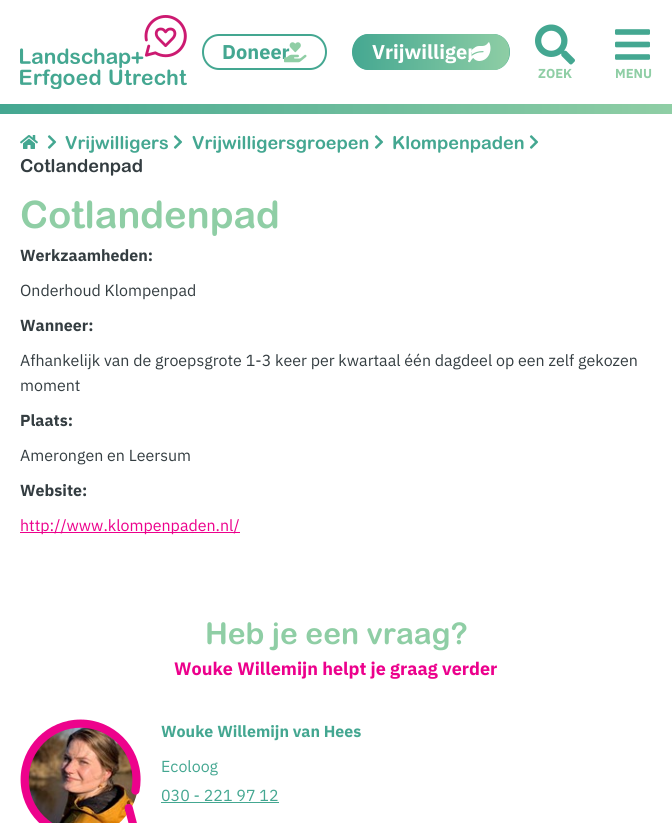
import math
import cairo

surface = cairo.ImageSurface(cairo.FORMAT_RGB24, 672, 823)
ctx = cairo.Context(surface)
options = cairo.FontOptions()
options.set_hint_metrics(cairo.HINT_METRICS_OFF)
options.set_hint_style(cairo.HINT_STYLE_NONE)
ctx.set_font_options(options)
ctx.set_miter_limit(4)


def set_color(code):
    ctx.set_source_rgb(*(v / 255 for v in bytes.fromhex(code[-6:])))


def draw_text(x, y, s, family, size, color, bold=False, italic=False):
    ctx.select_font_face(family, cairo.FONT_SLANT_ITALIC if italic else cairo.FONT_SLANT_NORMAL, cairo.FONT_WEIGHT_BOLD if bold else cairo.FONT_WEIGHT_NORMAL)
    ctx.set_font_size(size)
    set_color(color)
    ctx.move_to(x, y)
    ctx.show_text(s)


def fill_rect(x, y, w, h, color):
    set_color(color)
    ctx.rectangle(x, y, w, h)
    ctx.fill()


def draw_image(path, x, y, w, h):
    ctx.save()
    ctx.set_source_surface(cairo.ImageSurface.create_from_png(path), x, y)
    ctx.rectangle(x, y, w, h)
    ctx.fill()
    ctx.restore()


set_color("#ffffff")
ctx.paint()
draw_image("assets/img1.png", 20, 15, 167, 74)
ctx.new_path()
ctx.move_to(219, 35)
ctx.line_to(310, 35)
ctx.curve_to(319, 35, 326, 42.5, 326, 52)
ctx.curve_to(326, 61.5, 319, 69, 310, 69)
ctx.line_to(219, 69)
ctx.curve_to(210, 69, 203, 61.5, 203, 52)
ctx.curve_to(203, 42.5, 210, 35, 219, 35)
ctx.close_path()
set_color("#44a791")
ctx.stroke()
draw_text(222, 59, "Doneer", "IBM Plex Sans", 20, "#44a791", bold=True)
draw_image("assets/img2.png", 284, 42, 23, 21)
ctx.new_path()
ctx.move_to(369, 35)
ctx.line_to(493, 35)
ctx.curve_to(502, 35, 509, 42.5, 509, 52)
ctx.curve_to(509, 61.5, 502, 69, 493, 69)
ctx.line_to(369, 69)
ctx.curve_to(360, 69, 353, 61.5, 353, 52)
ctx.curve_to(353, 42.5, 360, 35, 369, 35)
ctx.close_path()
ctx.stroke()
gradient = cairo.LinearGradient(350, 52, 512, 52)
gradient.add_color_stop_rgba(0, 0.267, 0.655, 0.569, 1)
gradient.add_color_stop_rgba(1, 0.561, 0.808, 0.647, 1)
ctx.set_source(gradient)
ctx.new_path()
ctx.move_to(369, 34)
ctx.curve_to(347, 34, 347, 70, 369, 70)
ctx.line_to(496, 70)
ctx.curve_to(516, 65, 513, 34, 493, 34)
ctx.close_path()
ctx.fill()
draw_text(372, 59, "Vrijwilliger", "IBM Plex Sans", 20, "#ffffff", bold=True)
draw_image("assets/img3.png", 468, 42, 23, 21)
draw_image("assets/img4.png", 535, 24, 40, 41)
draw_text(538, 78, "ZOEK", "IBM Plex Sans", 13, "#8fcea5", bold=True)
draw_image("assets/img5.png", 615, 29, 35, 31)
draw_text(615, 78, "MENU", "IBM Plex Sans", 13, "#8fcea5", bold=True)
gradient = cairo.LinearGradient(0, 109, 672, 109)
gradient.add_color_stop_rgba(0, 0.267, 0.655, 0.569, 1)
gradient.add_color_stop_rgba(1, 0.561, 0.808, 0.647, 1)
ctx.set_source(gradient)
ctx.rectangle(0, 104, 672, 10)
ctx.fill()
draw_image("assets/img6.png", 20, 135, 18, 14)
draw_image("assets/img7.png", 47, 135, 10, 14)
draw_text(65, 149, "Vrijwilligers", "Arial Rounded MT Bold", 18, "#44a791", bold=True)
draw_image("assets/img7.png", 173, 135, 10, 14)
draw_text(192, 149, "Vrijwilligersgroepen", "Arial Rounded MT Bold", 18, "#44a791", bold=True)
draw_image("assets/img7.png", 374, 135, 10, 14)
draw_text(392, 149, "Klompenpaden", "Arial Rounded MT Bold", 18, "#44a791", bold=True)
draw_image("assets/img7.png", 529, 135, 10, 14)
draw_text(20, 172, "Cotlandenpad", "Arial Rounded MT Bold", 18, "#343d41", bold=True)
draw_text(20, 228, "Cotlandenpad", "Arial Rounded MT Bold", 38, "#8fcea5", bold=True)
draw_text(20, 261, "Werkzaamheden:", "IBM Plex Sans", 16, "#343d41", bold=True)
draw_text(20, 296, "Onderhoud Klompenpad", "IBM Plex Sans", 16, "#343d41")
draw_text(20, 331, "Wanneer:", "IBM Plex Sans", 16, "#343d41", bold=True)
draw_text(20, 366, "Afhankelijk van de groepsgrote 1-3 keer per kwartaal één dagdeel op een zelf gekozen", "IBM Plex Sans", 16, "#343d41")
draw_text(20, 391, "moment", "IBM Plex Sans", 16, "#343d41")
draw_text(20, 426, "Plaats:", "IBM Plex Sans", 16, "#343d41", bold=True)
draw_text(20, 461, "Amerongen en Leersum", "IBM Plex Sans", 16, "#343d41")
draw_text(20, 496, "Website:", "IBM Plex Sans", 16, "#343d41", bold=True)
fill_rect(20, 532, 220, 1, "#ec008c")
draw_text(20, 531, "http://www.klompenpaden.nl/", "IBM Plex Sans", 16, "#ec008c")
draw_text(205, 644, "Heb je een vraag?", "Arial Rounded MT Bold", 30, "#8fcea5", bold=True)
draw_text(174, 675, "Wouke Willemijn helpt je graag verder", "IBM Plex Sans", 18, "#ec008c", bold=True)
draw_image("assets/img9.png", 28, 727, 109, 96)
draw_image("assets/img8.png", 20, 719, 121, 104)
draw_text(161, 737, "Wouke Willemijn van Hees", "IBM Plex Sans", 16, "#44a791", bold=True)
draw_text(161, 772, "Ecoloog", "IBM Plex Sans", 16, "#44a791")
draw_text(161, 801, "030 - 221 97 12", "IBM Plex Sans", 16, "#44a791")
fill_rect(161, 802, 118, 1, "#44a791")
surface.write_to_png("output.png")
